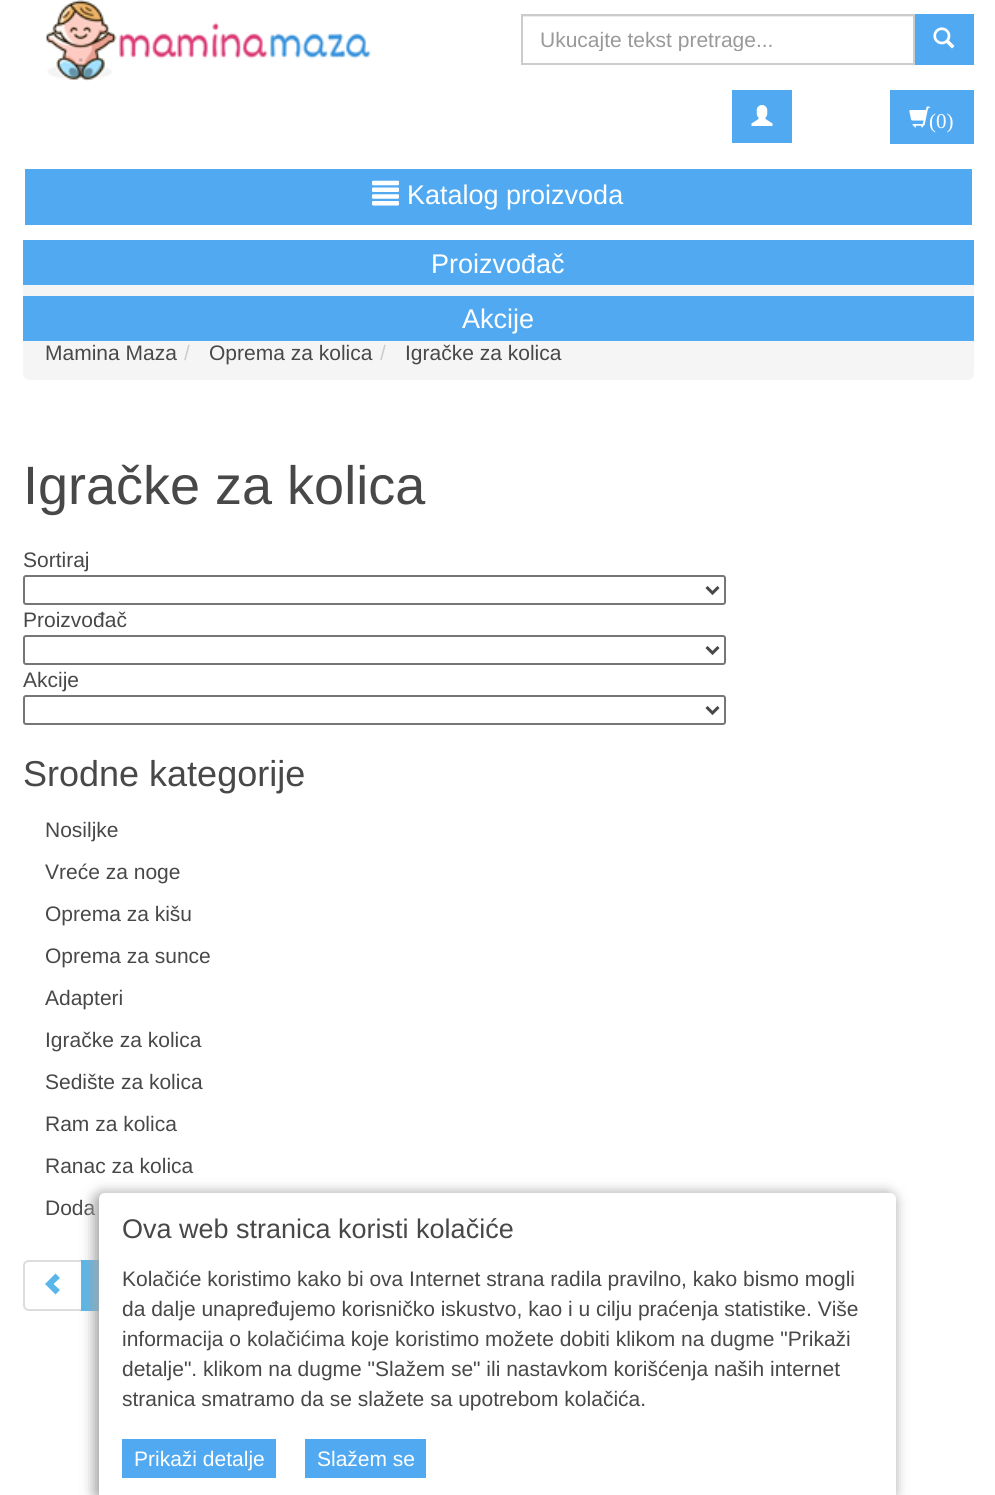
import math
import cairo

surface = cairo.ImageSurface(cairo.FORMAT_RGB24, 995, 1495)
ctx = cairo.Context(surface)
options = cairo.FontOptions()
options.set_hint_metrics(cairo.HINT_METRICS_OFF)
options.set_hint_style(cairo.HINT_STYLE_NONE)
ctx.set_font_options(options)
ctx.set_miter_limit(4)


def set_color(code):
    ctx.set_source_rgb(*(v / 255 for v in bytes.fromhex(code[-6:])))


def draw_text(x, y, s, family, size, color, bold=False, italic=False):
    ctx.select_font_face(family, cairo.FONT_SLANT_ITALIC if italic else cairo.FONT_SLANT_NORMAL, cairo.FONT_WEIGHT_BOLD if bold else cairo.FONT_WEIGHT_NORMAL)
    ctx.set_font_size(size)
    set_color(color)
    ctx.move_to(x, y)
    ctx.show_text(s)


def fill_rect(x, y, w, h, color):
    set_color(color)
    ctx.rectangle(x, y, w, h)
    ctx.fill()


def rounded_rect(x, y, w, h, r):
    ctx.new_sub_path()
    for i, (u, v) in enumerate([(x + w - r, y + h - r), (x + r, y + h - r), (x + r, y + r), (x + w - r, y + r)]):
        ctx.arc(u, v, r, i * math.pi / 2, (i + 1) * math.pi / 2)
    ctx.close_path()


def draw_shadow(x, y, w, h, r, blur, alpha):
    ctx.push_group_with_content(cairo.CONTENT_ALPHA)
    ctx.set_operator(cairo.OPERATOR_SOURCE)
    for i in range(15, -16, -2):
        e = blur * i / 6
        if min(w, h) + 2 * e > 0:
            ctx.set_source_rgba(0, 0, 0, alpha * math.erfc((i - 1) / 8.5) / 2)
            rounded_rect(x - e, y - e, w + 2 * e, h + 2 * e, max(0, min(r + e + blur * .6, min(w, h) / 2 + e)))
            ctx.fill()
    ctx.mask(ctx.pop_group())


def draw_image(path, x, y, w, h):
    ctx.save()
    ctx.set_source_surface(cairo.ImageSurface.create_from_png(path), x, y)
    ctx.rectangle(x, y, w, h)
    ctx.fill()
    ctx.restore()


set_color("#ffffff")
ctx.paint()
draw_image("assets/img1.png", 45, 0, 326, 81)
fill_rect(522, 16, 392, 1, "#ececec")
ctx.rectangle(522, 15, 392, 49)
set_color("#cccccc")
ctx.stroke()
ctx.save()
ctx.rectangle(540, 27, 356, 24)
ctx.clip()
draw_text(540, 47, "Ukucajte tekst pretrage...", "Liberation Sans", 21, "#999999")
ctx.restore()
fill_rect(915, 14, 59, 51, "#51aaf1")
draw_image("assets/img2.png", 933, 27, 22, 22)
fill_rect(732, 90, 60, 53, "#51aaf1")
draw_image("assets/img3.png", 751, 105, 22, 21)
fill_rect(890, 90, 84, 54, "#51aaf1")
draw_image("assets/img4.png", 909, 106, 21, 22)
draw_text(929, 128, "(0)", "Liberation Serif", 21, "#ffffff")
fill_rect(25, 169, 947, 56, "#51aaf1")
draw_image("assets/img5.png", 372, 180, 27, 26)
draw_text(407, 204, "Katalog proizvoda", "Liberation Sans", 27, "#ffffff")
set_color("#f5f5f5")
rounded_rect(23, 251, 951, 129, 6)
ctx.fill()
fill_rect(23, 240, 951, 45, "#51aaf1")
draw_text(431, 273, "Proizvođač", "Liberation Sans", 27, "#ffffff")
fill_rect(23, 296, 951, 45, "#51aaf1")
draw_text(462, 328, "Akcije", "Liberation Sans", 27, "#ffffff")
draw_text(45, 360, "Mamina Maza", "Liberation Sans", 21, "#484848")
draw_text(184, 360, "/", "Liberation Sans", 21, "#cccccc")
draw_text(209, 360, "Oprema za kolica", "Liberation Sans", 21, "#484848")
draw_text(380, 360, "/", "Liberation Sans", 21, "#cccccc")
draw_text(405, 360, "Igračke za kolica", "Liberation Sans", 21, "#484848")
draw_text(23, 504, "Igračke za kolica", "Liberation Sans", 54, "#484848")
draw_text(23, 567, "Sortiraj", "Liberation Sans", 21, "#484848")
rounded_rect(24, 576, 701, 28, 2)
set_color("#767676")
ctx.stroke()
ctx.new_path()
ctx.move_to(706.5, 587)
ctx.line_to(712.5, 593)
ctx.line_to(718.5, 587)
set_color("#484848")
ctx.set_line_width(3)
ctx.stroke()
draw_text(23, 627, "Proizvođač", "Liberation Sans", 21, "#484848")
rounded_rect(24, 636, 701, 28, 2)
set_color("#767676")
ctx.set_line_width(2)
ctx.stroke()
ctx.new_path()
ctx.move_to(706.5, 647)
ctx.line_to(712.5, 653)
ctx.line_to(718.5, 647)
set_color("#484848")
ctx.set_line_width(3)
ctx.stroke()
draw_text(23, 687, "Akcije", "Liberation Sans", 21, "#484848")
rounded_rect(24, 696, 701, 28, 2)
set_color("#767676")
ctx.set_line_width(2)
ctx.stroke()
ctx.new_path()
ctx.move_to(706.5, 707)
ctx.line_to(712.5, 713)
ctx.line_to(718.5, 707)
set_color("#484848")
ctx.set_line_width(3)
ctx.stroke()
draw_text(23, 786, "Srodne kategorije", "Liberation Sans", 36, "#484848")
draw_text(45, 837, "Nosiljke", "Liberation Sans", 21, "#484848")
draw_text(45, 879, "Vreće za noge", "Liberation Sans", 21, "#484848")
draw_text(45, 921, "Oprema za kišu", "Liberation Sans", 21, "#484848")
draw_text(45, 963, "Oprema za sunce", "Liberation Sans", 21, "#484848")
draw_text(45, 1005, "Adapteri", "Liberation Sans", 21, "#484848")
draw_text(45, 1047, "Igračke za kolica", "Liberation Sans", 21, "#484848")
draw_text(45, 1089, "Sedište za kolica", "Liberation Sans", 21, "#484848")
draw_text(45, 1131, "Ram za kolica", "Liberation Sans", 21, "#484848")
draw_text(45, 1173, "Ranac za kolica", "Liberation Sans", 21, "#484848")
draw_text(45, 1215, "Doda", "Liberation Sans", 21, "#484848")
ctx.new_path()
ctx.move_to(29, 1261)
ctx.line_to(82, 1261)
ctx.line_to(82, 1310)
ctx.line_to(29, 1310)
ctx.curve_to(26, 1310, 24, 1308, 24, 1305)
ctx.line_to(24, 1266)
ctx.curve_to(24, 1263, 26, 1261, 29, 1261)
ctx.close_path()
set_color("#dddddd")
ctx.set_line_width(2)
ctx.stroke()
set_color("#58b6ea")
ctx.new_path()
ctx.move_to(45, 1284)
ctx.line_to(55.5, 1294.5)
ctx.line_to(60, 1290)
ctx.line_to(53.5, 1284)
ctx.line_to(60, 1278)
ctx.line_to(55.5, 1273.5)
ctx.close_path()
ctx.fill()
fill_rect(81, 1260, 18, 51, "#58b6ea")
set_color("#a5a5a5")
draw_shadow(96, 1196, 797, 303, 6, 7, 0.8)
draw_shadow(96, 1194, 797, 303, 6, 7, 0.8)
set_color("#ffffff")
ctx.new_path()
ctx.move_to(105, 1193)
ctx.line_to(890, 1193)
ctx.curve_to(893.5, 1193, 896, 1195.5, 896, 1199)
ctx.line_to(896, 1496)
ctx.line_to(99, 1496)
ctx.line_to(99, 1199)
ctx.curve_to(99, 1195.5, 101.5, 1193, 105, 1193)
ctx.close_path()
ctx.fill()
draw_text(122, 1238, "Ova web stranica koristi kolačiće", "Liberation Sans", 27, "#484848")
draw_text(122, 1286, "Kolačiće koristimo kako bi ova Internet strana radila pravilno, kako bismo mogli", "Liberation Sans", 21, "#484848")
draw_text(122, 1316, "da dalje unapređujemo korisničko iskustvo, kao i u cilju praćenja statistike. Više", "Liberation Sans", 21, "#484848")
draw_text(122, 1346, "informacija o kolačićima koje koristimo možete dobiti klikom na dugme \"Prikaži", "Liberation Sans", 21, "#484848")
draw_text(122, 1376, "detalje\". klikom na dugme \"Slažem se\" ili nastavkom korišćenja naših internet", "Liberation Sans", 21, "#484848")
draw_text(122, 1406, "stranica smatramo da se slažete sa upotrebom kolačića.", "Liberation Sans", 21, "#484848")
fill_rect(122, 1439, 154, 39, "#51aaf1")
draw_text(134, 1466, "Prikaži detalje", "Liberation Sans", 21, "#ffffff")
fill_rect(305, 1439, 121, 39, "#51aaf1")
draw_text(317, 1466, "Slažem se", "Liberation Sans", 21, "#ffffff")
surface.write_to_png("output.png")
